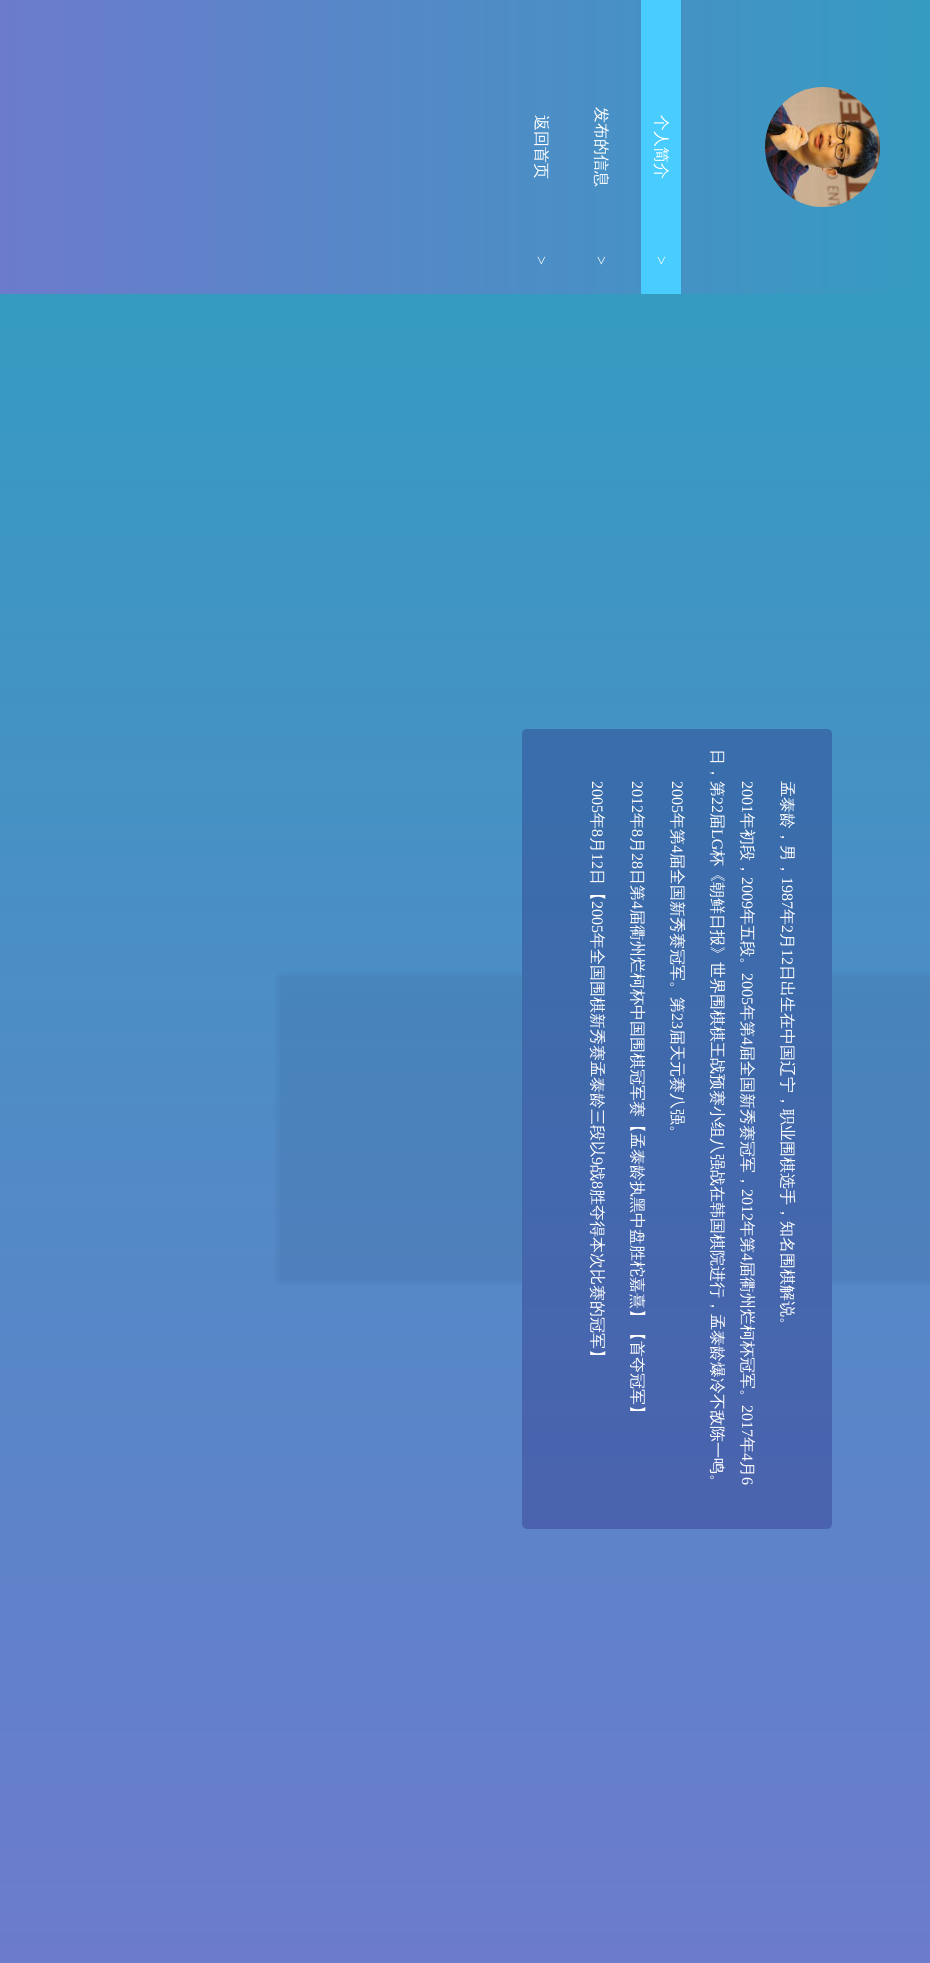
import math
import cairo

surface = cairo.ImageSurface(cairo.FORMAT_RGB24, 930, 1963)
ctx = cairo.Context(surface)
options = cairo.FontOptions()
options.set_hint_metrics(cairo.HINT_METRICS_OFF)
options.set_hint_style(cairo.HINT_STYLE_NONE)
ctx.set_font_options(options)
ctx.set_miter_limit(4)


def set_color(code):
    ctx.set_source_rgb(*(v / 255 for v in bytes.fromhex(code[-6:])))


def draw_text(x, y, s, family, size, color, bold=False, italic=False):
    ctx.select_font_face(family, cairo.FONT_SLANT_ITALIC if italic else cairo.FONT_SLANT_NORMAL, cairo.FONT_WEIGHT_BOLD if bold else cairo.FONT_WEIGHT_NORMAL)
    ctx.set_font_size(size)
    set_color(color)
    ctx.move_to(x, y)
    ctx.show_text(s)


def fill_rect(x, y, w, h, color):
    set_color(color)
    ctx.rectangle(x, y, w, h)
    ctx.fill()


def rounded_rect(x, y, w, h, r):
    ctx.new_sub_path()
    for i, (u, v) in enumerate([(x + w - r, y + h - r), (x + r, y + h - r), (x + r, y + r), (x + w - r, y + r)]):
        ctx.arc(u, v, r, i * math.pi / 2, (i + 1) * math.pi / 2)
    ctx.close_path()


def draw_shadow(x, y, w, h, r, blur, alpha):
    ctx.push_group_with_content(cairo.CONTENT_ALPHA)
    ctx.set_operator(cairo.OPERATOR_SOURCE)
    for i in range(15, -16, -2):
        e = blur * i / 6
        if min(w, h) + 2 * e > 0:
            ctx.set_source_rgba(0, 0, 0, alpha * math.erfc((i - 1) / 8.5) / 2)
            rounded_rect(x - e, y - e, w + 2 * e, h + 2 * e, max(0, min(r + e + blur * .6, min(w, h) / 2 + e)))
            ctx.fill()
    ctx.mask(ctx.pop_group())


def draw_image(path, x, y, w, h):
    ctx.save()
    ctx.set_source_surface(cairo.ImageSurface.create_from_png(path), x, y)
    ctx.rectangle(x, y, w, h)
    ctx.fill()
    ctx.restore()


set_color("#ffffff")
ctx.paint()
gradient = cairo.LinearGradient(930, 147, 0, 147)
gradient.add_color_stop_rgba(0, 0.208, 0.608, 0.757, 1)
gradient.add_color_stop_rgba(1, 0.424, 0.482, 0.8, 1)
ctx.set_source(gradient)
ctx.rectangle(0, 0, 930, 294)
ctx.fill()
ctx.save()
ctx.translate(536, 115)
ctx.rotate(90 * math.pi / 180)
draw_text(0, 0, "返回首页", "WenQuanYi Zen Hei Medium", 16, "#ffffff")
ctx.restore()
ctx.save()
ctx.translate(536, 256)
ctx.rotate(90 * math.pi / 180)
draw_text(0, 0, ">", "Liberation Serif", 16, "#ffffff")
ctx.restore()
ctx.save()
ctx.translate(596, 107)
ctx.rotate(90 * math.pi / 180)
draw_text(0, 0, "发布的信息", "WenQuanYi Zen Hei Medium", 16, "#ffffff")
ctx.restore()
ctx.save()
ctx.translate(596, 256)
ctx.rotate(90 * math.pi / 180)
draw_text(0, 0, ">", "Liberation Serif", 16, "#ffffff")
ctx.restore()
fill_rect(641, 0, 40, 294, "#49cdff")
ctx.save()
ctx.translate(656, 115)
ctx.rotate(90 * math.pi / 180)
draw_text(0, 0, "个人简介", "WenQuanYi Zen Hei Medium", 16, "#ffffff")
ctx.restore()
ctx.save()
ctx.translate(656, 256)
ctx.rotate(90 * math.pi / 180)
draw_text(0, 0, ">", "Liberation Serif", 16, "#ffffff")
ctx.restore()
draw_image("assets/img1.png", 765, 87, 115, 120)
gradient = cairo.LinearGradient(465, 1963, 465, 294)
gradient.add_color_stop_rgba(0, 0.424, 0.482, 0.8, 1)
gradient.add_color_stop_rgba(1, 0.208, 0.608, 0.757, 1)
ctx.set_source(gradient)
ctx.rectangle(0, 294, 930, 1669)
ctx.fill()
ctx.save()
ctx.set_fill_rule(cairo.FILL_RULE_EVEN_ODD)
ctx.new_path()
ctx.move_to(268, 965)
ctx.line_to(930, 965)
ctx.line_to(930, 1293)
ctx.line_to(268, 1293)
ctx.close_path()
ctx.move_to(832, 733.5)
ctx.line_to(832, 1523.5)
ctx.curve_to(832, 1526.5, 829.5, 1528.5, 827, 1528.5)
ctx.line_to(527, 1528.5)
ctx.curve_to(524, 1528.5, 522, 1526.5, 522, 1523.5)
ctx.line_to(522, 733.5)
ctx.curve_to(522, 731, 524, 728.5, 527, 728.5)
ctx.line_to(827, 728.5)
ctx.curve_to(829.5, 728.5, 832, 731, 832, 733.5)
ctx.close_path()
ctx.clip()
set_color("#121f3e")
draw_shadow(277, 974, 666, 310, 5, 2.5, 0.08)
ctx.restore()
ctx.set_source_rgba(0.118, 0.098, 0.439, 0.3)
ctx.new_path()
ctx.move_to(832, 734)
ctx.line_to(832, 1524)
ctx.curve_to(832, 1526, 830, 1529, 827, 1529)
ctx.line_to(527, 1529)
ctx.curve_to(524, 1529, 522, 1526, 522, 1524)
ctx.line_to(522, 734)
ctx.curve_to(522, 731, 524, 729, 527, 729)
ctx.line_to(827, 729)
ctx.curve_to(830, 729, 832, 731, 832, 734)
ctx.close_path()
ctx.fill()
ctx.save()
ctx.translate(592, 781)
ctx.rotate(90 * math.pi / 180)
draw_text(0, 0, "2005", "Liberation Serif", 16, "#ffffff")
ctx.restore()
ctx.save()
ctx.translate(592, 813)
ctx.rotate(90 * math.pi / 180)
draw_text(0, 0, "年", "WenQuanYi Zen Hei Medium", 16, "#ffffff")
ctx.restore()
ctx.save()
ctx.translate(592, 829)
ctx.rotate(90 * math.pi / 180)
draw_text(0, 0, "8", "Liberation Serif", 16, "#ffffff")
ctx.restore()
ctx.save()
ctx.translate(592, 837)
ctx.rotate(90 * math.pi / 180)
draw_text(0, 0, "月", "WenQuanYi Zen Hei Medium", 16, "#ffffff")
ctx.restore()
ctx.save()
ctx.translate(592, 853)
ctx.rotate(90 * math.pi / 180)
draw_text(0, 0, "12", "Liberation Serif", 16, "#ffffff")
ctx.restore()
ctx.save()
ctx.translate(592, 869)
ctx.rotate(90 * math.pi / 180)
draw_text(0, 0, "日【", "WenQuanYi Zen Hei Medium", 16, "#ffffff")
ctx.restore()
ctx.save()
ctx.translate(592, 901)
ctx.rotate(90 * math.pi / 180)
draw_text(0, 0, "2005", "Liberation Serif", 16, "#ffffff")
ctx.restore()
ctx.save()
ctx.translate(592, 933)
ctx.rotate(90 * math.pi / 180)
draw_text(0, 0, "年全国围棋新秀赛孟泰龄三段以", "WenQuanYi Zen Hei Medium", 16, "#ffffff")
ctx.restore()
ctx.save()
ctx.translate(592, 1157)
ctx.rotate(90 * math.pi / 180)
draw_text(0, 0, "9", "Liberation Serif", 16, "#ffffff")
ctx.restore()
ctx.save()
ctx.translate(592, 1165)
ctx.rotate(90 * math.pi / 180)
draw_text(0, 0, "战", "WenQuanYi Zen Hei Medium", 16, "#ffffff")
ctx.restore()
ctx.save()
ctx.translate(592, 1181)
ctx.rotate(90 * math.pi / 180)
draw_text(0, 0, "8", "Liberation Serif", 16, "#ffffff")
ctx.restore()
ctx.save()
ctx.translate(592, 1189)
ctx.rotate(90 * math.pi / 180)
draw_text(0, 0, "胜夺得本次比赛的冠军】", "WenQuanYi Zen Hei Medium", 16, "#ffffff")
ctx.restore()
ctx.save()
ctx.translate(632, 781)
ctx.rotate(90 * math.pi / 180)
draw_text(0, 0, "2012", "Liberation Serif", 16, "#ffffff")
ctx.restore()
ctx.save()
ctx.translate(632, 813)
ctx.rotate(90 * math.pi / 180)
draw_text(0, 0, "年", "WenQuanYi Zen Hei Medium", 16, "#ffffff")
ctx.restore()
ctx.save()
ctx.translate(632, 829)
ctx.rotate(90 * math.pi / 180)
draw_text(0, 0, "8", "Liberation Serif", 16, "#ffffff")
ctx.restore()
ctx.save()
ctx.translate(632, 837)
ctx.rotate(90 * math.pi / 180)
draw_text(0, 0, "月", "WenQuanYi Zen Hei Medium", 16, "#ffffff")
ctx.restore()
ctx.save()
ctx.translate(632, 853)
ctx.rotate(90 * math.pi / 180)
draw_text(0, 0, "28", "Liberation Serif", 16, "#ffffff")
ctx.restore()
ctx.save()
ctx.translate(632, 869)
ctx.rotate(90 * math.pi / 180)
draw_text(0, 0, "日第", "WenQuanYi Zen Hei Medium", 16, "#ffffff")
ctx.restore()
ctx.save()
ctx.translate(632, 901)
ctx.rotate(90 * math.pi / 180)
draw_text(0, 0, "4", "Liberation Serif", 16, "#ffffff")
ctx.restore()
ctx.save()
ctx.translate(632, 909)
ctx.rotate(90 * math.pi / 180)
draw_text(0, 0, "届衢州烂柯杯中国围棋冠军赛【孟泰龄执黑中盘胜柁嘉熹】【首夺冠军】", "WenQuanYi Zen Hei Medium", 16, "#ffffff")
ctx.restore()
ctx.save()
ctx.translate(672, 781)
ctx.rotate(90 * math.pi / 180)
draw_text(0, 0, "2005", "Liberation Serif", 16, "#ffffff")
ctx.restore()
ctx.save()
ctx.translate(672, 813)
ctx.rotate(90 * math.pi / 180)
draw_text(0, 0, "年第", "WenQuanYi Zen Hei Medium", 16, "#ffffff")
ctx.restore()
ctx.save()
ctx.translate(672, 845)
ctx.rotate(90 * math.pi / 180)
draw_text(0, 0, "4", "Liberation Serif", 16, "#ffffff")
ctx.restore()
ctx.save()
ctx.translate(672, 853)
ctx.rotate(90 * math.pi / 180)
draw_text(0, 0, "届全国新秀赛冠军。第", "WenQuanYi Zen Hei Medium", 16, "#ffffff")
ctx.restore()
ctx.save()
ctx.translate(672, 1013)
ctx.rotate(90 * math.pi / 180)
draw_text(0, 0, "23", "Liberation Serif", 16, "#ffffff")
ctx.restore()
ctx.save()
ctx.translate(672, 1029)
ctx.rotate(90 * math.pi / 180)
draw_text(0, 0, "届天元赛八强。", "WenQuanYi Zen Hei Medium", 16, "#ffffff")
ctx.restore()
ctx.save()
ctx.translate(712, 749)
ctx.rotate(90 * math.pi / 180)
draw_text(0, 0, "日，第", "WenQuanYi Zen Hei Medium", 16, "#ffffff")
ctx.restore()
ctx.save()
ctx.translate(742, 781)
ctx.rotate(90 * math.pi / 180)
draw_text(0, 0, "2001", "Liberation Serif", 16, "#ffffff")
ctx.restore()
ctx.save()
ctx.translate(712, 797)
ctx.rotate(90 * math.pi / 180)
draw_text(0, 0, "22", "Liberation Serif", 16, "#ffffff")
ctx.restore()
ctx.save()
ctx.translate(712, 813)
ctx.rotate(90 * math.pi / 180)
draw_text(0, 0, "届", "WenQuanYi Zen Hei Medium", 16, "#ffffff")
ctx.restore()
ctx.save()
ctx.translate(742, 813)
ctx.rotate(90 * math.pi / 180)
draw_text(0, 0, "年初段，", "WenQuanYi Zen Hei Medium", 16, "#ffffff")
ctx.restore()
ctx.save()
ctx.translate(712, 829)
ctx.rotate(90 * math.pi / 180)
draw_text(0, 0, "LG", "Liberation Serif", 16, "#ffffff")
ctx.restore()
ctx.save()
ctx.translate(712, 850)
ctx.rotate(90 * math.pi / 180)
draw_text(0, 0, "杯《朝鲜日报》世界围棋棋王战预赛小组八强战在韩国棋院进行，孟泰龄爆冷不敌陈一鸣。", "WenQuanYi Zen Hei Medium", 16, "#ffffff")
ctx.restore()
ctx.save()
ctx.translate(742, 877)
ctx.rotate(90 * math.pi / 180)
draw_text(0, 0, "2009", "Liberation Serif", 16, "#ffffff")
ctx.restore()
ctx.save()
ctx.translate(742, 909)
ctx.rotate(90 * math.pi / 180)
draw_text(0, 0, "年五段。", "WenQuanYi Zen Hei Medium", 16, "#ffffff")
ctx.restore()
ctx.save()
ctx.translate(742, 973)
ctx.rotate(90 * math.pi / 180)
draw_text(0, 0, "2005", "Liberation Serif", 16, "#ffffff")
ctx.restore()
ctx.save()
ctx.translate(742, 1005)
ctx.rotate(90 * math.pi / 180)
draw_text(0, 0, "年第", "WenQuanYi Zen Hei Medium", 16, "#ffffff")
ctx.restore()
ctx.save()
ctx.translate(742, 1037)
ctx.rotate(90 * math.pi / 180)
draw_text(0, 0, "4", "Liberation Serif", 16, "#ffffff")
ctx.restore()
ctx.save()
ctx.translate(742, 1045)
ctx.rotate(90 * math.pi / 180)
draw_text(0, 0, "届全国新秀赛冠军，", "WenQuanYi Zen Hei Medium", 16, "#ffffff")
ctx.restore()
ctx.save()
ctx.translate(742, 1189)
ctx.rotate(90 * math.pi / 180)
draw_text(0, 0, "2012", "Liberation Serif", 16, "#ffffff")
ctx.restore()
ctx.save()
ctx.translate(742, 1221)
ctx.rotate(90 * math.pi / 180)
draw_text(0, 0, "年第", "WenQuanYi Zen Hei Medium", 16, "#ffffff")
ctx.restore()
ctx.save()
ctx.translate(742, 1253)
ctx.rotate(90 * math.pi / 180)
draw_text(0, 0, "4", "Liberation Serif", 16, "#ffffff")
ctx.restore()
ctx.save()
ctx.translate(742, 1261)
ctx.rotate(90 * math.pi / 180)
draw_text(0, 0, "届衢州烂柯杯冠军。", "WenQuanYi Zen Hei Medium", 16, "#ffffff")
ctx.restore()
ctx.save()
ctx.translate(742, 1405)
ctx.rotate(90 * math.pi / 180)
draw_text(0, 0, "2017", "Liberation Serif", 16, "#ffffff")
ctx.restore()
ctx.save()
ctx.translate(742, 1437)
ctx.rotate(90 * math.pi / 180)
draw_text(0, 0, "年", "WenQuanYi Zen Hei Medium", 16, "#ffffff")
ctx.restore()
ctx.save()
ctx.translate(742, 1453)
ctx.rotate(90 * math.pi / 180)
draw_text(0, 0, "4", "Liberation Serif", 16, "#ffffff")
ctx.restore()
ctx.save()
ctx.translate(742, 1461)
ctx.rotate(90 * math.pi / 180)
draw_text(0, 0, "月", "WenQuanYi Zen Hei Medium", 16, "#ffffff")
ctx.restore()
ctx.save()
ctx.translate(742, 1477)
ctx.rotate(90 * math.pi / 180)
draw_text(0, 0, "6", "Liberation Serif", 16, "#ffffff")
ctx.restore()
ctx.save()
ctx.translate(782, 781)
ctx.rotate(90 * math.pi / 180)
draw_text(0, 0, "孟泰龄，男，", "WenQuanYi Zen Hei Medium", 16, "#ffffff")
ctx.restore()
ctx.save()
ctx.translate(782, 877)
ctx.rotate(90 * math.pi / 180)
draw_text(0, 0, "1987", "Liberation Serif", 16, "#ffffff")
ctx.restore()
ctx.save()
ctx.translate(782, 909)
ctx.rotate(90 * math.pi / 180)
draw_text(0, 0, "年", "WenQuanYi Zen Hei Medium", 16, "#ffffff")
ctx.restore()
ctx.save()
ctx.translate(782, 925)
ctx.rotate(90 * math.pi / 180)
draw_text(0, 0, "2", "Liberation Serif", 16, "#ffffff")
ctx.restore()
ctx.save()
ctx.translate(782, 933)
ctx.rotate(90 * math.pi / 180)
draw_text(0, 0, "月", "WenQuanYi Zen Hei Medium", 16, "#ffffff")
ctx.restore()
ctx.save()
ctx.translate(782, 949)
ctx.rotate(90 * math.pi / 180)
draw_text(0, 0, "12", "Liberation Serif", 16, "#ffffff")
ctx.restore()
ctx.save()
ctx.translate(782, 965)
ctx.rotate(90 * math.pi / 180)
draw_text(0, 0, "日出生在中国辽宁，职业围棋选手，知名围棋解说。", "WenQuanYi Zen Hei Medium", 16, "#ffffff")
ctx.restore()
surface.write_to_png("output.png")
